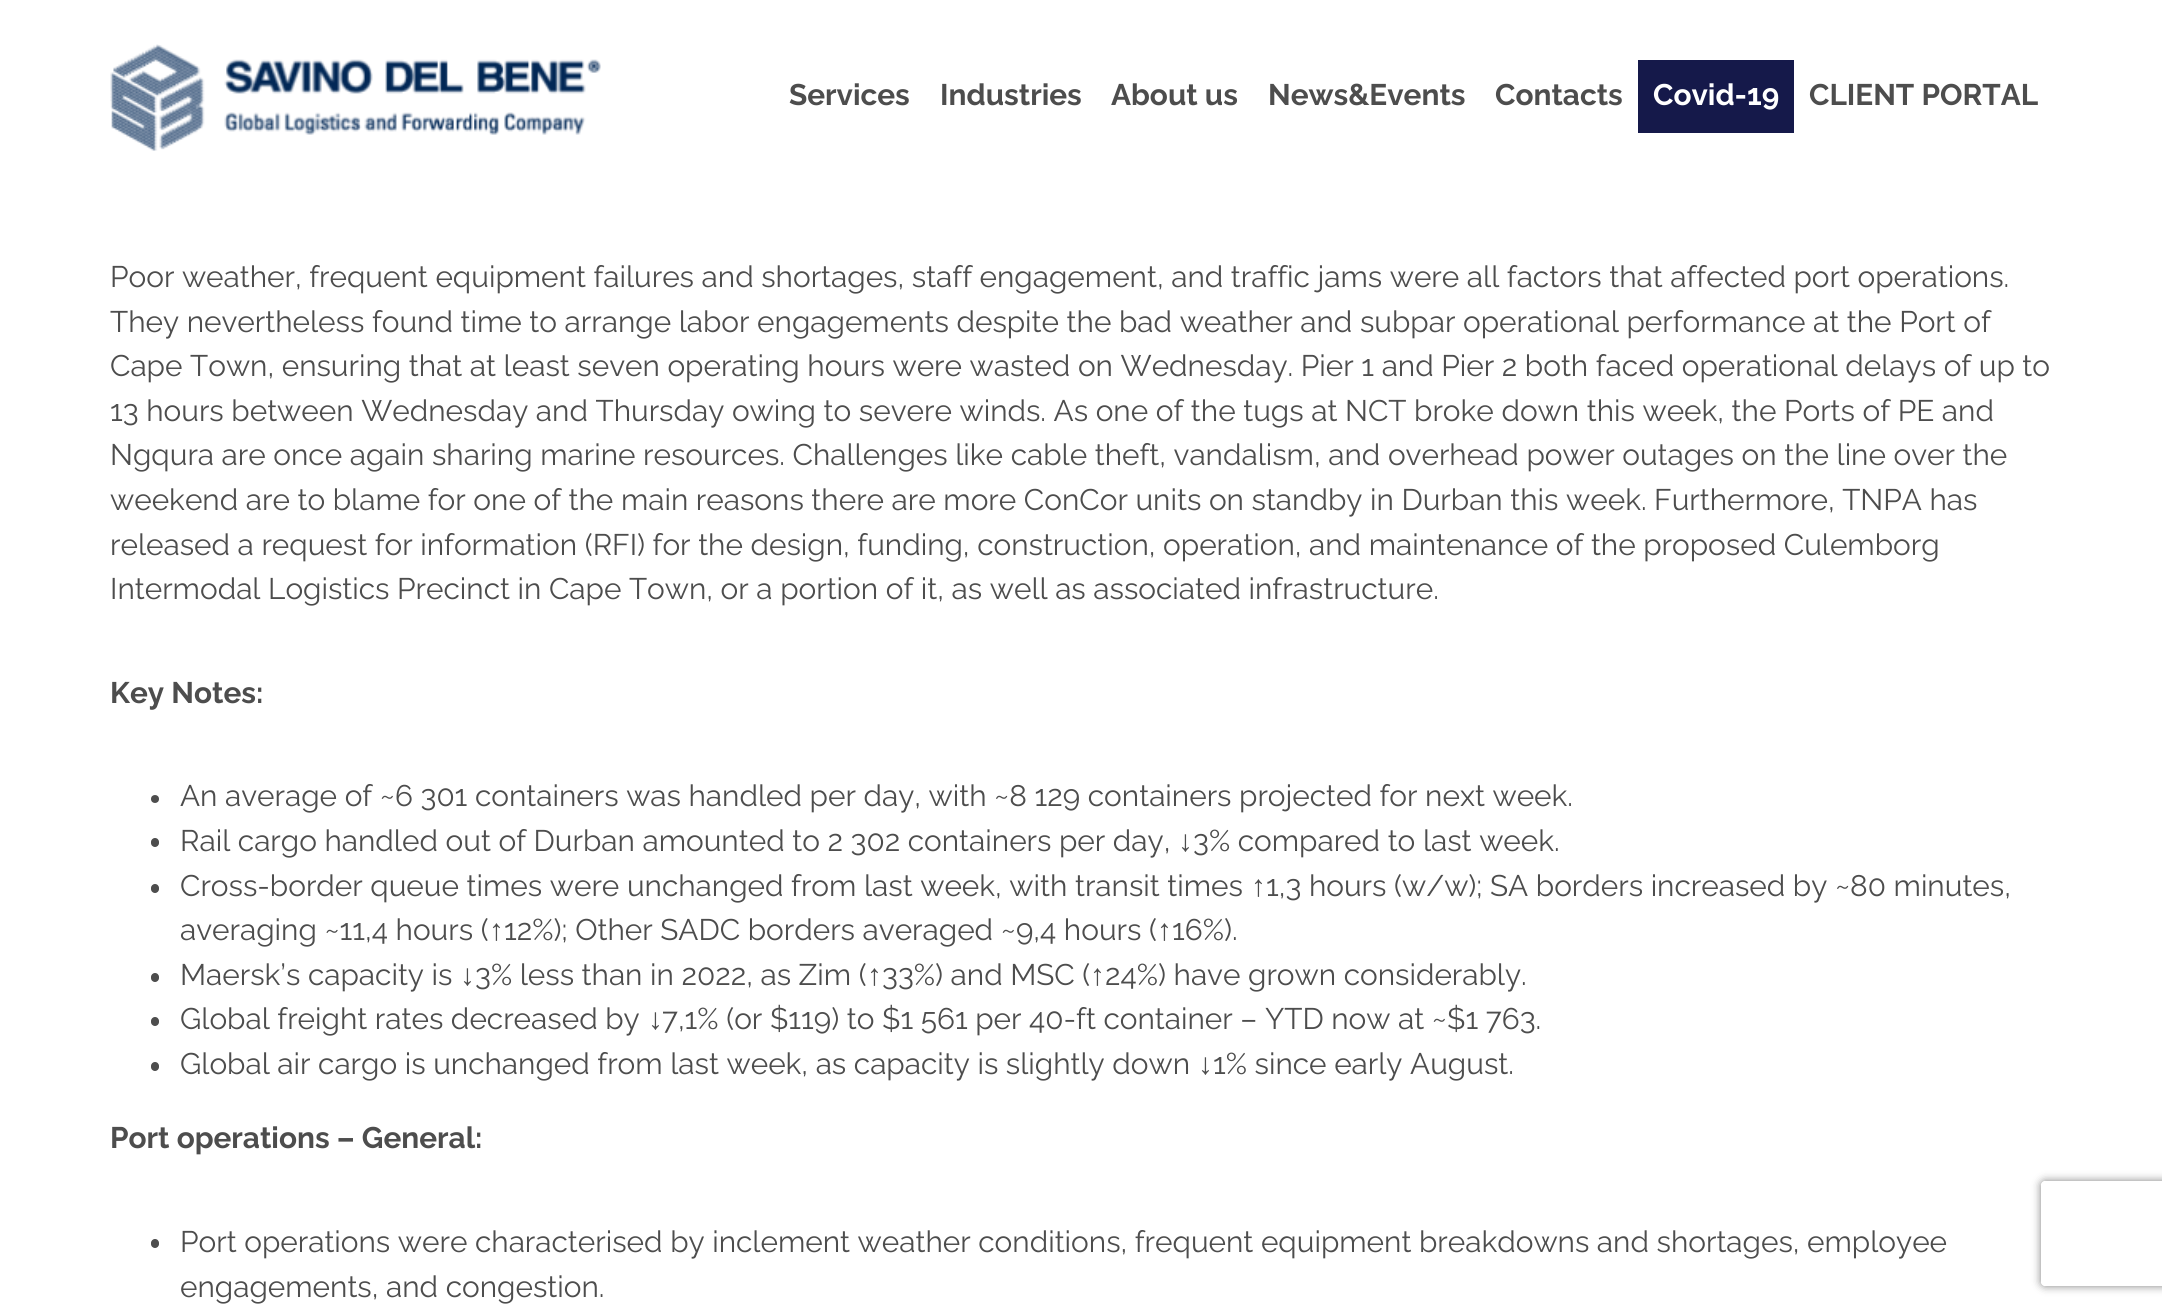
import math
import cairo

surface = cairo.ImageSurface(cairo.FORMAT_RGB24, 2162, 1310)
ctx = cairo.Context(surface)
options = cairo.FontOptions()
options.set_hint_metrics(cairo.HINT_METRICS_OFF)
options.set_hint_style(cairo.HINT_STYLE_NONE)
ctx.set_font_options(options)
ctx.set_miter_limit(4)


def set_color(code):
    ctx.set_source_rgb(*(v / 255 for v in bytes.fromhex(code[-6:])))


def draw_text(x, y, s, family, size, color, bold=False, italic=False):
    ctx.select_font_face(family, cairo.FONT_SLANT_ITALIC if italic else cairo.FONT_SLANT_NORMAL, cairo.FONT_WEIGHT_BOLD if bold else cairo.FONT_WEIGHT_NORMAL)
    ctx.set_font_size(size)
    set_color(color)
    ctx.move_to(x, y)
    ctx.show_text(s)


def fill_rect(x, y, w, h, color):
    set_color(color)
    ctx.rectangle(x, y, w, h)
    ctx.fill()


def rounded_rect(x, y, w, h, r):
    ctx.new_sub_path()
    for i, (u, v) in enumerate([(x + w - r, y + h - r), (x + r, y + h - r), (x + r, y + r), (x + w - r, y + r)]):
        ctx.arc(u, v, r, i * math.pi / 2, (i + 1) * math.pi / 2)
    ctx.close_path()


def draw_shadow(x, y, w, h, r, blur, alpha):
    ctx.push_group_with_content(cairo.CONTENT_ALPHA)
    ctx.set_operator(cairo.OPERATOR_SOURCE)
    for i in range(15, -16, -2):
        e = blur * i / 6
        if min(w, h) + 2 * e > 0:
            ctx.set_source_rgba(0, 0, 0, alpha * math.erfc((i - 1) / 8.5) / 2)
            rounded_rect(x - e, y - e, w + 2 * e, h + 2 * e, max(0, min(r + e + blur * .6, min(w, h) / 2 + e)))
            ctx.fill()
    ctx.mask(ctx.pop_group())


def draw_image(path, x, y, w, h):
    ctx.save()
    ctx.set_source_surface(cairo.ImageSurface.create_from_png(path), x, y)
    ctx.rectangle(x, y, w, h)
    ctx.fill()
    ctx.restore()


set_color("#ffffff")
ctx.paint()
draw_image("assets/img1.png", 110, 44, 491, 107)
draw_text(789, 105, "Services", "Raleway", 29.75, "#4d4d4d", bold=True)
draw_text(940, 105, "Industries", "Raleway", 29.75, "#4d4d4d", bold=True)
draw_text(1111, 105, "About us", "Raleway", 29.75, "#4d4d4d", bold=True)
draw_text(1268, 105, "News&Events", "Raleway", 29.75, "#4d4d4d", bold=True)
draw_text(1495, 105, "Contacts", "Raleway", 29.75, "#4d4d4d", bold=True)
fill_rect(1638, 60, 156, 73, "#15194a")
draw_text(1653, 105, "Covid-19", "Raleway", 29.75, "#ffffff", bold=True)
draw_text(1809, 105, "CLIENT PORTAL", "Raleway", 29.75, "#4d4d4d", bold=True)
draw_text(110, 287, "Poor weather, frequent equipment failures and shortages, staff engagement, and traffic jams were all factors that affected port operations.", "Raleway", 29.75, "#4d4d4d")
draw_text(110, 332, "They nevertheless found time to arrange labor engagements despite the bad weather and subpar operational performance at the Port of", "Raleway", 29.75, "#4d4d4d")
draw_text(110, 376, "Cape Town, ensuring that at least seven operating hours were wasted on Wednesday. Pier 1 and Pier 2 both faced operational delays of up to", "Raleway", 29.75, "#4d4d4d")
draw_text(110, 421, "13 hours between Wednesday and Thursday owing to severe winds. As one of the tugs at NCT broke down this week, the Ports of PE and", "Raleway", 29.75, "#4d4d4d")
draw_text(110, 465, "Ngqura are once again sharing marine resources. Challenges like cable theft, vandalism, and overhead power outages on the line over the", "Raleway", 29.75, "#4d4d4d")
draw_text(110, 510, "weekend are to blame for one of the main reasons there are more ConCor units on standby in Durban this week. Furthermore, TNPA has", "Raleway", 29.75, "#4d4d4d")
draw_text(110, 555, "released a request for information (RFI) for the design, funding, construction, operation, and maintenance of the proposed Culemborg", "Raleway", 29.75, "#4d4d4d")
draw_text(110, 599, "Intermodal Logistics Precinct in Cape Town, or a portion of it, as well as associated infrastructure.", "Raleway", 29.75, "#4d4d4d")
draw_text(110, 703, "Key Notes:", "Raleway", 29.75, "#4d4d4d", bold=True)
ctx.new_path()
ctx.arc(155, 799, 4, 0, 2 * math.pi)
ctx.fill()
draw_text(180, 806, "An average of ~6 301 containers was handled per day, with ~8 129 containers projected for next week.", "Raleway", 29.75, "#4d4d4d")
rounded_rect(151, 838, 8, 9, 4)
ctx.fill()
draw_text(180, 851, "Rail cargo handled out of Durban amounted to 2 302 containers per day,", "Raleway", 29.75, "#4d4d4d")
draw_text(1178, 851, "↓", "Liberation Sans", 29.75, "#4d4d4d")
draw_text(1193, 851, "3% compared to last week.", "Raleway", 29.75, "#4d4d4d")
rounded_rect(151, 884, 8, 9, 4)
ctx.fill()
draw_text(180, 896, "Cross-border queue times were unchanged from last week, with transit times", "Raleway", 29.75, "#4d4d4d")
draw_text(1251, 896, "↑", "Liberation Sans", 29.75, "#4d4d4d")
draw_text(1266, 896, "1,3 hours (w/w); SA borders increased by ~80 minutes,", "Raleway", 29.75, "#4d4d4d")
draw_text(180, 940, "averaging ~11,4 hours (", "Raleway", 29.75, "#4d4d4d")
draw_text(489, 940, "↑", "Liberation Sans", 29.75, "#4d4d4d")
draw_text(504, 940, "12%); Other SADC borders averaged ~9,4 hours (", "Raleway", 29.75, "#4d4d4d")
draw_text(1157, 940, "↑", "Liberation Sans", 29.75, "#4d4d4d")
draw_text(1172, 940, "16%).", "Raleway", 29.75, "#4d4d4d")
rounded_rect(151, 973, 8, 9, 4)
ctx.fill()
draw_text(180, 985, "Maersk’s capacity is", "Raleway", 29.75, "#4d4d4d")
draw_text(460, 985, "↓", "Liberation Sans", 29.75, "#4d4d4d")
draw_text(475, 985, "3% less than in 2022, as Zim (", "Raleway", 29.75, "#4d4d4d")
draw_text(867, 985, "↑", "Liberation Sans", 29.75, "#4d4d4d")
draw_text(882, 985, "33%) and MSC (", "Raleway", 29.75, "#4d4d4d")
draw_text(1090, 985, "↑", "Liberation Sans", 29.75, "#4d4d4d")
draw_text(1105, 985, "24%) have grown considerably.", "Raleway", 29.75, "#4d4d4d")
rounded_rect(151, 1017, 8, 9, 4)
ctx.fill()
draw_text(180, 1029, "Global freight rates decreased by", "Raleway", 29.75, "#4d4d4d")
draw_text(648, 1029, "↓", "Liberation Sans", 29.75, "#4d4d4d")
draw_text(662, 1029, "7,1% (or $119) to $1 561 per 40-ft container – YTD now at ~$1 763.", "Raleway", 29.75, "#4d4d4d")
rounded_rect(151, 1062, 8, 9, 4)
ctx.fill()
draw_text(180, 1074, "Global air cargo is unchanged from last week, as capacity is slightly down", "Raleway", 29.75, "#4d4d4d")
draw_text(1198, 1074, "↓", "Liberation Sans", 29.75, "#4d4d4d")
draw_text(1213, 1074, "1% since early August.", "Raleway", 29.75, "#4d4d4d")
draw_text(110, 1148, "Port operations – General:", "Raleway", 29.75, "#4d4d4d", bold=True)
rounded_rect(151, 1239, 8, 9, 4)
ctx.fill()
draw_text(180, 1252, "Port operations were characterised by inclement weather conditions, frequent equipment breakdowns and shortages, employee", "Raleway", 29.75, "#4d4d4d")
draw_text(180, 1297, "engagements, and congestion.", "Raleway", 29.75, "#4d4d4d")
ctx.save()
ctx.set_fill_rule(cairo.FILL_RULE_EVEN_ODD)
ctx.new_path()
ctx.move_to(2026, 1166)
ctx.line_to(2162, 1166)
ctx.line_to(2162, 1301)
ctx.line_to(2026, 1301)
ctx.close_path()
ctx.move_to(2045, 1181)
ctx.line_to(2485, 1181)
ctx.curve_to(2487, 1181, 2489, 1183, 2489, 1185)
ctx.line_to(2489, 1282)
ctx.curve_to(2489, 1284, 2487, 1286, 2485, 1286)
ctx.line_to(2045, 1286)
ctx.curve_to(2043, 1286, 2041, 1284, 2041, 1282)
ctx.line_to(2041, 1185)
ctx.curve_to(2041, 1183, 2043, 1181, 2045, 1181)
ctx.close_path()
ctx.clip()
set_color("#808080")
draw_shadow(2041, 1181, 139, 105, 4, 4.5, 1)
ctx.restore()
surface.write_to_png("output.png")
